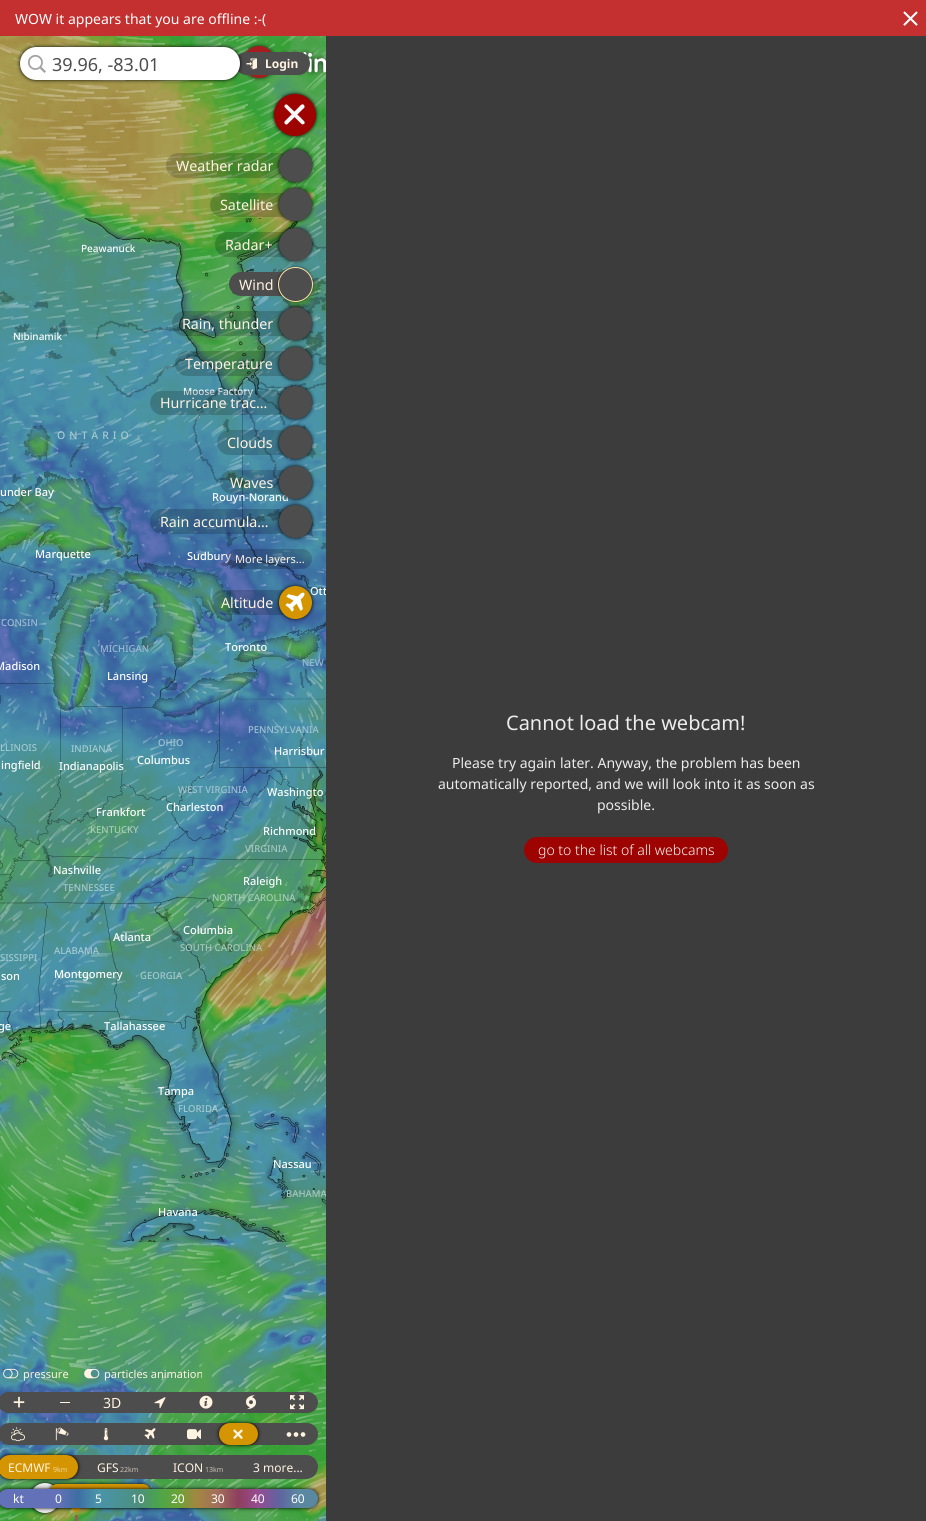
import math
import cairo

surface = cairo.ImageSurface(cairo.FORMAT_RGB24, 926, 1521)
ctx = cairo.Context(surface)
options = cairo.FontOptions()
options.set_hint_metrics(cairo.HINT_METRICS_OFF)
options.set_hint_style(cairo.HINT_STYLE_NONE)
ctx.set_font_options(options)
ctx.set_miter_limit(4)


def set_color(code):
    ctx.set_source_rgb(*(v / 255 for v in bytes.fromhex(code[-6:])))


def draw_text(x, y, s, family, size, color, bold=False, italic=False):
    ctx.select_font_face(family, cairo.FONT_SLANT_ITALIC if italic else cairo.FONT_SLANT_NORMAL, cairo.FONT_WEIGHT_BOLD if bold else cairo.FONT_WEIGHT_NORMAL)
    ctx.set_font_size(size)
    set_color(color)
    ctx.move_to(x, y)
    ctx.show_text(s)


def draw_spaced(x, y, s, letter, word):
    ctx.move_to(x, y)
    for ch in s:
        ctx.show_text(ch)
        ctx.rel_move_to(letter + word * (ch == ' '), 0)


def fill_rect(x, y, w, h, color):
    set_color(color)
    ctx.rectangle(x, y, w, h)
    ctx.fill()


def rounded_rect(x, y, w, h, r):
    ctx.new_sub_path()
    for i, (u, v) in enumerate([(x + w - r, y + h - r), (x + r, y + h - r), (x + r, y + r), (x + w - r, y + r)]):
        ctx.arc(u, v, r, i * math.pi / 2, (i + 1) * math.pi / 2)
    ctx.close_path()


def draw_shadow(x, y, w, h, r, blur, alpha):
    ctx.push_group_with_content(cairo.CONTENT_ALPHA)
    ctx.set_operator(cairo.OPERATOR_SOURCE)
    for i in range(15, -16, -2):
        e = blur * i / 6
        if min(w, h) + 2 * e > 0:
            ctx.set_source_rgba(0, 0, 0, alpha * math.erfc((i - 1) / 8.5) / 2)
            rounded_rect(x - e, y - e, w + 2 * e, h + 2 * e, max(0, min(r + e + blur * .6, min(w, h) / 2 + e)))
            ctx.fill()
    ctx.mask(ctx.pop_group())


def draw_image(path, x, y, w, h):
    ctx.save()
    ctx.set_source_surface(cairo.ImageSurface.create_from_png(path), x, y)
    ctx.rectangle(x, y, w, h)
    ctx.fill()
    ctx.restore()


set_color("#ffffff")
ctx.paint()
fill_rect(0, 0, 926, 36, "#c42f2f")
draw_text(15, 24, "WOW it appears that you are offline :-(", "Noto Sans", 14, "#ffffff")
draw_image("assets/img1.png", 903, 11, 15, 15)
draw_image("assets/img29.png", 260, 474, 66, 256)
draw_image("assets/img21.png", 0, 36, 4, 182)
draw_image("assets/img22.png", 4, 36, 256, 182)
draw_image("assets/img23.png", 260, 36, 66, 182)
draw_image("assets/img24.png", 0, 218, 4, 256)
draw_image("assets/img25.png", 4, 218, 256, 256)
draw_image("assets/img26.png", 260, 218, 66, 256)
draw_image("assets/img27.png", 0, 474, 4, 256)
draw_image("assets/img28.png", 4, 474, 256, 256)
draw_image("assets/img30.png", 0, 730, 4, 256)
draw_image("assets/img31.png", 4, 730, 256, 256)
draw_image("assets/img32.png", 260, 730, 66, 256)
draw_image("assets/img33.png", 0, 986, 4, 256)
draw_image("assets/img34.png", 4, 986, 256, 256)
draw_image("assets/img35.png", 260, 986, 66, 256)
draw_image("assets/img36.png", 0, 1242, 4, 251)
draw_image("assets/img37.png", 4, 1242, 256, 248)
draw_image("assets/img38.png", 260, 1242, 66, 256)
draw_image("assets/img39.png", 0, 1504, 4, 17)
draw_image("assets/img40.png", 4, 1507, 256, 14)
draw_image("assets/img41.png", 260, 1498, 66, 23)
draw_image("assets/img42.png", 0, 36, 326, 1485)
draw_image("assets/img48.png", 260, 474, 66, 226)
draw_text(310, 595, "Ott", "Noto Sans Medium", 11, "#ffffff")
draw_image("assets/img54.png", 260, 1113, 66, 129)
draw_text(286, 1197, "BAHAMA", "Noto Sans Medium", 9.5, "#a8c8c0")
fill_rect(326, 36, 600, 1485, "#3c3c3c")
draw_text(506, 730, "Cannot load the webcam!", "Noto Sans", 20, "#ececec")
draw_text(452, 768, "Please try again later. Anyway, the problem has been", "Noto Sans", 14, "#ececec")
draw_text(438, 789, "automatically reported, and we will look into it as soon as", "Noto Sans", 14, "#ececec")
draw_text(597, 810, "possible.", "Noto Sans", 14, "#ececec")
set_color("#9d0300")
rounded_rect(524, 837, 204, 26, 13)
ctx.fill()
draw_text(538, 855, "go to the list of all webcams", "Noto Sans Light", 14, "#f8f8f8")
draw_image("assets/img3.png", 241, 42, 35, 40)
draw_image("assets/img4.png", 280, 49, 46, 27)
set_color("#4d4d4d")
rounded_rect(235, 52, 75, 23, 11.5)
ctx.fill()
draw_image("assets/img5.png", 246, 58, 11, 12)
set_color("#000000")
draw_shadow(20, 47, 220, 33, 16.5, 2, 1)
set_color("#ffffff")
rounded_rect(20, 47, 220, 33, 16.5)
ctx.fill()
draw_image("assets/img2.png", 28, 55, 18, 18)
draw_text(52, 71, "39.96, -83.01", "Noto Sans", 18, "#4d4d4d")
draw_text(265, 68, "Login", "Noto Sans", 12, "#fff3e1", bold=True)
set_color("#000000")
draw_shadow(274, 94, 42, 42, 21, 2, 1)
set_color("#9d0300")
ctx.arc(295, 115, 21, 0, 2 * math.pi)
ctx.fill()
set_color("#f8f8f8")
ctx.new_path()
ctx.move_to(287.5, 105)
ctx.line_to(301.5, 118.5)
ctx.curve_to(302, 119.5, 305.5, 121.5, 304.5, 123.5)
ctx.line_to(303, 124.5)
ctx.line_to(301.5, 124)
ctx.line_to(284.5, 107)
ctx.curve_to(284, 105, 286, 103.5, 287.5, 105)
ctx.close_path()
ctx.fill()
ctx.new_path()
ctx.move_to(285, 121)
ctx.line_to(298.5, 107.5)
ctx.curve_to(299.5, 106.5, 301.5, 103.5, 303.5, 104.5)
ctx.line_to(304.5, 106)
ctx.line_to(304.5, 107.5)
ctx.line_to(287, 124.5)
ctx.curve_to(285, 125, 283.5, 122.5, 285, 121)
ctx.close_path()
ctx.fill()
ctx.set_source_rgba(0, 0, 0, 0.18)
ctx.new_path()
ctx.move_to(178.5, 153)
ctx.line_to(293, 153)
ctx.line_to(293, 178)
ctx.line_to(178.5, 178)
ctx.curve_to(171.5, 178, 166, 172.5, 166, 165.5)
ctx.curve_to(166, 158.5, 171.5, 153, 178.5, 153)
ctx.close_path()
ctx.fill()
draw_text(176, 171, "Weather radar", "Noto Sans", 14.25, "#fff3e1")
set_color("#000000")
draw_shadow(279, 149, 33, 33, 16.5, 2, 1)
set_color("#4d4d4d")
ctx.arc(295.5, 165.5, 16.5, 0, 2 * math.pi)
ctx.fill()
ctx.set_source_rgba(0, 0, 0, 0.18)
ctx.new_path()
ctx.move_to(222, 193)
ctx.line_to(293, 193)
ctx.line_to(293, 217)
ctx.line_to(222, 217)
ctx.curve_to(215.5, 217, 210, 211.5, 210, 205)
ctx.curve_to(210, 198.5, 215.5, 193, 222, 193)
ctx.close_path()
ctx.fill()
draw_text(220, 210, "Satellite", "Noto Sans", 14.25, "#fff3e1")
draw_image("assets/img45.png", 260, 218, 66, 256)
set_color("#000000")
draw_shadow(279, 188, 33, 33, 16.5, 2, 1)
set_color("#4d4d4d")
ctx.arc(295.5, 204.5, 16.5, 0, 2 * math.pi)
ctx.fill()
draw_image("assets/img44.png", 4, 218, 256, 256)
ctx.set_source_rgba(0, 0, 0, 0.18)
ctx.new_path()
ctx.move_to(227.5, 232)
ctx.line_to(293, 232)
ctx.line_to(293, 257)
ctx.line_to(227.5, 257)
ctx.curve_to(220.5, 257, 215, 251.5, 215, 244.5)
ctx.curve_to(215, 237.5, 220.5, 232, 227.5, 232)
ctx.close_path()
ctx.fill()
draw_text(225, 250, "Radar+", "Noto Sans", 14.25, "#fff3e1")
set_color("#000000")
draw_shadow(279, 228, 33, 33, 16.5, 2, 1)
set_color("#4d4d4d")
ctx.arc(295.5, 244.5, 16.5, 0, 2 * math.pi)
ctx.fill()
ctx.new_path()
ctx.move_to(241, 272)
ctx.line_to(293, 272)
ctx.line_to(293, 296)
ctx.line_to(241, 296)
ctx.curve_to(234.5, 296, 229, 290.5, 229, 284)
ctx.curve_to(229, 277.5, 234.5, 272, 241, 272)
ctx.close_path()
ctx.fill()
draw_text(239, 290, "Wind", "Noto Sans", 14.25, "#fff3e1")
set_color("#000000")
draw_shadow(279, 268, 33, 33, 16.5, 2, 1)
set_color("#4d4d4d")
ctx.arc(295.5, 284.5, 17, 0, 2 * math.pi)
ctx.fill_preserve()
set_color("#ffe3a1")
ctx.set_line_width(1)
ctx.stroke()
ctx.set_source_rgba(0, 0, 0, 0.18)
ctx.new_path()
ctx.move_to(184.5, 311)
ctx.line_to(293, 311)
ctx.line_to(293, 336)
ctx.line_to(184.5, 336)
ctx.curve_to(177.5, 336, 172, 330.5, 172, 323.5)
ctx.curve_to(172, 316.5, 177.5, 311, 184.5, 311)
ctx.close_path()
ctx.fill()
draw_text(182, 329, "Rain, thunder", "Noto Sans", 14.25, "#fff3e1")
set_color("#000000")
draw_shadow(279, 307, 33, 33, 16.5, 2, 1)
set_color("#4d4d4d")
ctx.arc(295.5, 323.5, 16.5, 0, 2 * math.pi)
ctx.fill()
ctx.set_source_rgba(0, 0, 0, 0.18)
ctx.new_path()
ctx.move_to(187.5, 351)
ctx.line_to(293, 351)
ctx.line_to(293, 376)
ctx.line_to(187.5, 376)
ctx.curve_to(180.5, 376, 175, 370.5, 175, 363.5)
ctx.curve_to(175, 356.5, 180.5, 351, 187.5, 351)
ctx.close_path()
ctx.fill()
draw_text(185, 369, "Temperature", "Noto Sans", 14.25, "#fff3e1")
set_color("#000000")
draw_shadow(279, 347, 33, 33, 16.5, 2, 1)
set_color("#4d4d4d")
ctx.arc(295.5, 363.5, 16.5, 0, 2 * math.pi)
ctx.fill()
draw_text(183, 395, "Moose Factory", "Noto Sans Medium", 10, "#ffffff")
ctx.set_source_rgba(0, 0, 0, 0.18)
ctx.new_path()
ctx.move_to(162, 391)
ctx.line_to(293, 391)
ctx.line_to(293, 415)
ctx.line_to(162, 415)
ctx.curve_to(155.5, 415, 150, 409.5, 150, 403)
ctx.curve_to(150, 396.5, 155.5, 391, 162, 391)
ctx.close_path()
ctx.fill()
draw_text(160, 408, "Hurricane trac…", "Noto Sans", 14.25, "#fff3e1")
set_color("#000000")
draw_shadow(279, 386, 33, 33, 16.5, 2, 1)
set_color("#4d4d4d")
ctx.arc(295.5, 402.5, 16.5, 0, 2 * math.pi)
ctx.fill()
ctx.set_source_rgba(0, 0, 0, 0.18)
ctx.new_path()
ctx.move_to(229.5, 430)
ctx.line_to(293, 430)
ctx.line_to(293, 455)
ctx.line_to(229.5, 455)
ctx.curve_to(222.5, 455, 217, 449.5, 217, 442.5)
ctx.curve_to(217, 435.5, 222.5, 430, 229.5, 430)
ctx.close_path()
ctx.fill()
draw_text(227, 448, "Clouds", "Noto Sans", 14.25, "#fff3e1")
set_color("#000000")
draw_shadow(279, 426, 33, 33, 16.5, 2, 1)
set_color("#4d4d4d")
ctx.arc(295.5, 442.5, 16.5, 0, 2 * math.pi)
ctx.fill()
draw_image("assets/img47.png", 4, 474, 256, 256)
draw_text(212, 501, "Rouyn-Norand", "Noto Sans Medium", 11, "#ffffff")
ctx.set_source_rgba(0, 0, 0, 0.18)
ctx.new_path()
ctx.move_to(232, 470)
ctx.line_to(293, 470)
ctx.line_to(293, 494)
ctx.line_to(232, 494)
ctx.curve_to(225.5, 494, 220, 488.5, 220, 482)
ctx.curve_to(220, 475.5, 225.5, 470, 232, 470)
ctx.close_path()
ctx.fill()
draw_text(230, 488, "Waves", "Noto Sans", 14.25, "#fff3e1")
set_color("#000000")
draw_shadow(279, 466, 33, 33, 16.5, 2, 1)
set_color("#4d4d4d")
ctx.arc(295.5, 482.5, 16.5, 0, 2 * math.pi)
ctx.fill()
ctx.set_source_rgba(0, 0, 0, 0.18)
ctx.new_path()
ctx.move_to(162.5, 509)
ctx.line_to(293, 509)
ctx.line_to(293, 534)
ctx.line_to(162.5, 534)
ctx.curve_to(155.5, 534, 150, 528.5, 150, 521.5)
ctx.curve_to(150, 514.5, 155.5, 509, 162.5, 509)
ctx.close_path()
ctx.fill()
draw_text(160, 527, "Rain accumula…", "Noto Sans", 14.25, "#fff3e1")
set_color("#000000")
draw_shadow(279, 505, 33, 33, 16.5, 2, 1)
set_color("#4d4d4d")
ctx.arc(295.5, 521.5, 16.5, 0, 2 * math.pi)
ctx.fill()
draw_text(187, 560, "Sudbury", "Noto Sans Medium", 11, "#ffffff")
ctx.set_source_rgba(0, 0, 0, 0.18)
rounded_rect(227, 549, 85, 20, 10)
ctx.fill()
draw_text(235, 563, "More layers...", "Noto Sans", 11, "#fff3e1")
ctx.set_source_rgba(0, 0, 0, 0.18)
ctx.new_path()
ctx.move_to(223.5, 590)
ctx.line_to(293, 590)
ctx.line_to(293, 615)
ctx.line_to(223.5, 615)
ctx.curve_to(216.5, 615, 211, 609.5, 211, 602.5)
ctx.curve_to(211, 595.5, 216.5, 590, 223.5, 590)
ctx.close_path()
ctx.fill()
draw_text(221, 608, "Altitude", "Noto Sans", 14.25, "#fff3e1")
set_color("#000000")
draw_shadow(279, 586, 33, 33, 16.5, 2, 1)
set_color("#d49500")
ctx.arc(295.5, 602.5, 16.5, 0, 2 * math.pi)
ctx.fill()
draw_image("assets/img6.png", 285, 592, 20, 20)
draw_image("assets/img7.png", 3, 1368, 16, 11)
draw_text(23, 1378, "pressure", "Noto Sans", 11, "#fff3e1")
draw_image("assets/img8.png", 84, 1368, 16, 11)
draw_text(104, 1378, "particles animation", "Noto Sans", 11, "#fff3e1")
set_color("#4d4d4d")
rounded_rect(-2, 1392, 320, 21, 10.5)
ctx.fill()
draw_image("assets/img9.png", 13, 1396, 12, 12)
fill_rect(60, 1402, 10, 1, "#fff3e1")
draw_text(103, 1408, "3D", "Noto Sans", 14, "#fff3e1")
draw_image("assets/img10.png", 154, 1397, 12, 12)
draw_image("assets/img11.png", 199, 1395, 14, 14)
draw_image("assets/img12.png", 246, 1395, 10, 15)
draw_image("assets/img13.png", 290, 1395, 14, 15)
set_color("#4d4d4d")
rounded_rect(-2, 1423, 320, 22, 11)
ctx.fill()
draw_image("assets/img14.png", 11, 1427, 14, 15)
draw_image("assets/img15.png", 55, 1427, 14, 14)
draw_image("assets/img16.png", 103, 1428, 6, 13)
draw_image("assets/img17.png", 144, 1428, 12, 12)
draw_image("assets/img18.png", 187, 1429, 14, 11)
set_color("#000000")
draw_shadow(219, 1423, 39, 22, 11, 2, 1)
set_color("#d49500")
rounded_rect(219, 1423, 39, 22, 11)
ctx.fill()
draw_image("assets/img19.png", 233, 1429, 10, 10)
draw_image("assets/img20.png", 286, 1432, 20, 5)
set_color("#000000")
draw_shadow(30, 1483, 30, 30, 15, 2, 1)
set_color("#ececec")
ctx.arc(45, 1498, 15, 0, 2 * math.pi)
ctx.fill()
set_color("#000000")
draw_shadow(50, 1484, 100, 23, 7, 2, 1)
set_color("#4d4d4d")
rounded_rect(-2, 1455, 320, 24, 12)
ctx.fill()
set_color("#d49500")
rounded_rect(50, 1484, 100, 23, 7)
ctx.fill()
set_color("#000000")
draw_shadow(-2, 1455, 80, 24, 12, 2, 1)
set_color("#d49500")
rounded_rect(-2, 1455, 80, 24, 12)
ctx.fill()
draw_text(8, 1472, "ECMWF", "Noto Sans", 12, "#fff3e1")
draw_text(53, 1472, "9km", "Noto Sans", 7, "#f2d79e")
draw_text(97, 1472, "GFS", "Noto Sans", 12, "#fff3e1")
draw_text(120, 1472, "22km", "Noto Sans", 7, "#cac1b5")
draw_text(173, 1472, "ICON", "Noto Sans", 12, "#fff3e1")
draw_text(205, 1472, "13km", "Noto Sans", 7, "#cac1b5")
draw_text(253, 1472, "3 more...", "Noto Sans", 12, "#fff3e1")
set_color("#d49500")
ctx.new_path()
ctx.move_to(70, 1507)
ctx.line_to(82, 1507)
ctx.line_to(76, 1513)
ctx.close_path()
ctx.fill()
set_color("#000000")
draw_shadow(-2, 1489, 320, 19, 9.5, 2, 1)
gradient = cairo.LinearGradient(-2, 1499, 318, 1499)
gradient.add_color_stop_rgba(0, 0.384, 0.443, 0.722, 1)
gradient.add_color_stop_rgba(0.19, 0.384, 0.443, 0.722, 1)
gradient.add_color_stop_rgba(0.25, 0.239, 0.431, 0.639, 1)
gradient.add_color_stop_rgba(0.31, 0.29, 0.58, 0.667, 1)
gradient.add_color_stop_rgba(0.38, 0.29, 0.573, 0.58, 1)
gradient.add_color_stop_rgba(0.44, 0.302, 0.557, 0.486, 1)
gradient.add_color_stop_rgba(0.5, 0.298, 0.643, 0.298, 1)
gradient.add_color_stop_rgba(0.56, 0.404, 0.643, 0.212, 1)
gradient.add_color_stop_rgba(0.62, 0.635, 0.529, 0.251, 1)
gradient.add_color_stop_rgba(0.69, 0.635, 0.427, 0.361, 1)
gradient.add_color_stop_rgba(0.75, 0.553, 0.247, 0.361, 1)
gradient.add_color_stop_rgba(0.81, 0.592, 0.294, 0.569, 1)
gradient.add_color_stop_rgba(0.88, 0.373, 0.392, 0.627, 1)
gradient.add_color_stop_rgba(0.94, 0.357, 0.533, 0.631, 1)
gradient.add_color_stop_rgba(1, 0.357, 0.533, 0.631, 1)
ctx.set_source(gradient)
rounded_rect(-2, 1489, 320, 19, 9.5)
ctx.fill()
draw_text(13, 1503, "kt", "Noto Sans", 12, "#ffffff")
draw_text(55, 1503, "0", "Noto Sans", 12, "#ffffff")
draw_text(95, 1503, "5", "Noto Sans", 12, "#ffffff")
draw_text(131, 1503, "10", "Noto Sans", 12, "#ffffff")
draw_text(171, 1503, "20", "Noto Sans", 12, "#ffffff")
draw_text(211, 1503, "30", "Noto Sans", 12, "#ffffff")
draw_text(251, 1503, "40", "Noto Sans", 12, "#ffffff")
draw_text(291, 1503, "60", "Noto Sans", 12, "#ffffff")
draw_image("assets/img43.png", 0, 290, 4, 107)
draw_image("assets/img46.png", 0, 501, 4, 203)
draw_image("assets/img49.png", 0, 792, 4, 112)
draw_image("assets/img50.png", 4, 730, 256, 256)
draw_image("assets/img51.png", 260, 732, 66, 213)
draw_image("assets/img52.png", 0, 1011, 4, 54)
draw_image("assets/img53.png", 4, 986, 256, 256)
draw_text(81, 252, "Peawanuck", "Noto Sans Medium", 10, "#ffffff")
draw_text(13, 340, "Nibinamik", "Noto Sans Medium", 10, "#ffffff")
ctx.set_font_size(10.5)
set_color("#a5cad0")
draw_spaced(57, 439, "ONTARIO", 4, 0)
draw_text(0, 496, "under Bay", "Noto Sans Medium", 11, "#ffffff")
draw_text(35, 558, "Marquette", "Noto Sans Medium", 11, "#ffffff")
draw_text(1, 626, "CONSIN", "Noto Sans Medium", 9.5, "#a0b9d2")
draw_text(100, 652, "MICHIGAN", "Noto Sans Medium", 9.5, "#a0b9d2")
draw_text(225, 651, "Toronto", "Noto Sans Medium", 11, "#ffffff")
draw_text(-5, 670, "Madison", "Noto Sans Medium", 11, "#ffffff")
draw_text(107, 680, "Lansing", "Noto Sans Medium", 11, "#ffffff")
draw_text(302, 666, "NEW", "Noto Sans Medium", 9.5, "#a0b9d2")
draw_text(248, 733, "PENNSYLVANIA", "Noto Sans Medium", 9.5, "#a4c2d4")
draw_text(274, 755, "Harrisbur", "Noto Sans Medium", 11, "#ffffff")
draw_text(267, 796, "Washingto", "Noto Sans Medium", 11, "#ffffff")
draw_text(263, 835, "Richmond", "Noto Sans Medium", 11, "#ffffff")
draw_text(245, 852, "VIRGINIA", "Noto Sans Medium", 9.5, "#a8c8c0")
draw_text(243, 885, "Raleigh", "Noto Sans Medium", 11, "#ffffff")
draw_text(158, 746, "OHIO", "Noto Sans Medium", 9.5, "#a4c2d4")
draw_text(0, 751, "LLINOIS", "Noto Sans Medium", 9.5, "#a5cad0")
draw_text(71, 752, "INDIANA", "Noto Sans Medium", 9.5, "#a5cad0")
draw_text(1, 769, "ingfield", "Noto Sans Medium", 11, "#ffffff")
draw_text(59, 770, "Indianapolis", "Noto Sans Medium", 11, "#ffffff")
draw_text(137, 764, "Columbus", "Noto Sans Medium", 11, "#ffffff")
draw_text(178, 793, "WEST VIRGINIA", "Noto Sans Medium", 9.5, "#a4c2d4")
draw_text(96, 816, "Frankfort", "Noto Sans Medium", 11, "#ffffff")
draw_text(166, 811, "Charleston", "Noto Sans Medium", 11, "#ffffff")
draw_text(90, 833, "KENTUCKY", "Noto Sans Medium", 9.5, "#a9ceb6")
draw_text(53, 874, "Nashville", "Noto Sans Medium", 11, "#ffffff")
draw_text(63, 891, "TENNESSEE", "Noto Sans Medium", 9.5, "#a6c9c8")
draw_text(212, 901, "NORTH CAROLINA", "Noto Sans Medium", 9.5, "#a9ceb6")
draw_text(183, 934, "Columbia", "Noto Sans Medium", 11, "#ffffff")
draw_text(113, 941, "Atlanta", "Noto Sans Medium", 11, "#ffffff")
draw_text(54, 954, "ALABAMA", "Noto Sans Medium", 9.5, "#a5cad0")
draw_text(180, 951, "SOUTH CAROLINA", "Noto Sans Medium", 9.5, "#aac6b5")
draw_text(0, 961, "SISSIPPI", "Noto Sans Medium", 9.5, "#a5cad0")
draw_text(54, 978, "Montgomery", "Noto Sans Medium", 11, "#ffffff")
draw_text(140, 979, "GEORGIA", "Noto Sans Medium", 9.5, "#a6c9c8")
draw_text(1, 980, "son", "Noto Sans Medium", 11, "#ffffff")
draw_text(-2, 1030, "ge", "Noto Sans Medium", 11, "#ffffff")
draw_text(104, 1030, "Tallahassee", "Noto Sans Medium", 11, "#ffffff")
draw_text(158, 1095, "Tampa", "Noto Sans Medium", 11, "#ffffff")
draw_text(178, 1112, "FLORIDA", "Noto Sans Medium", 9.5, "#a5cad0")
draw_text(158, 1216, "Havana", "Noto Sans Medium", 11, "#ffffff")
draw_text(273, 1168, "Nassau", "Noto Sans Medium", 11, "#ffffff")
fill_rect(75, 1515, 3, 6, "#946051")
surface.write_to_png("output.png")
